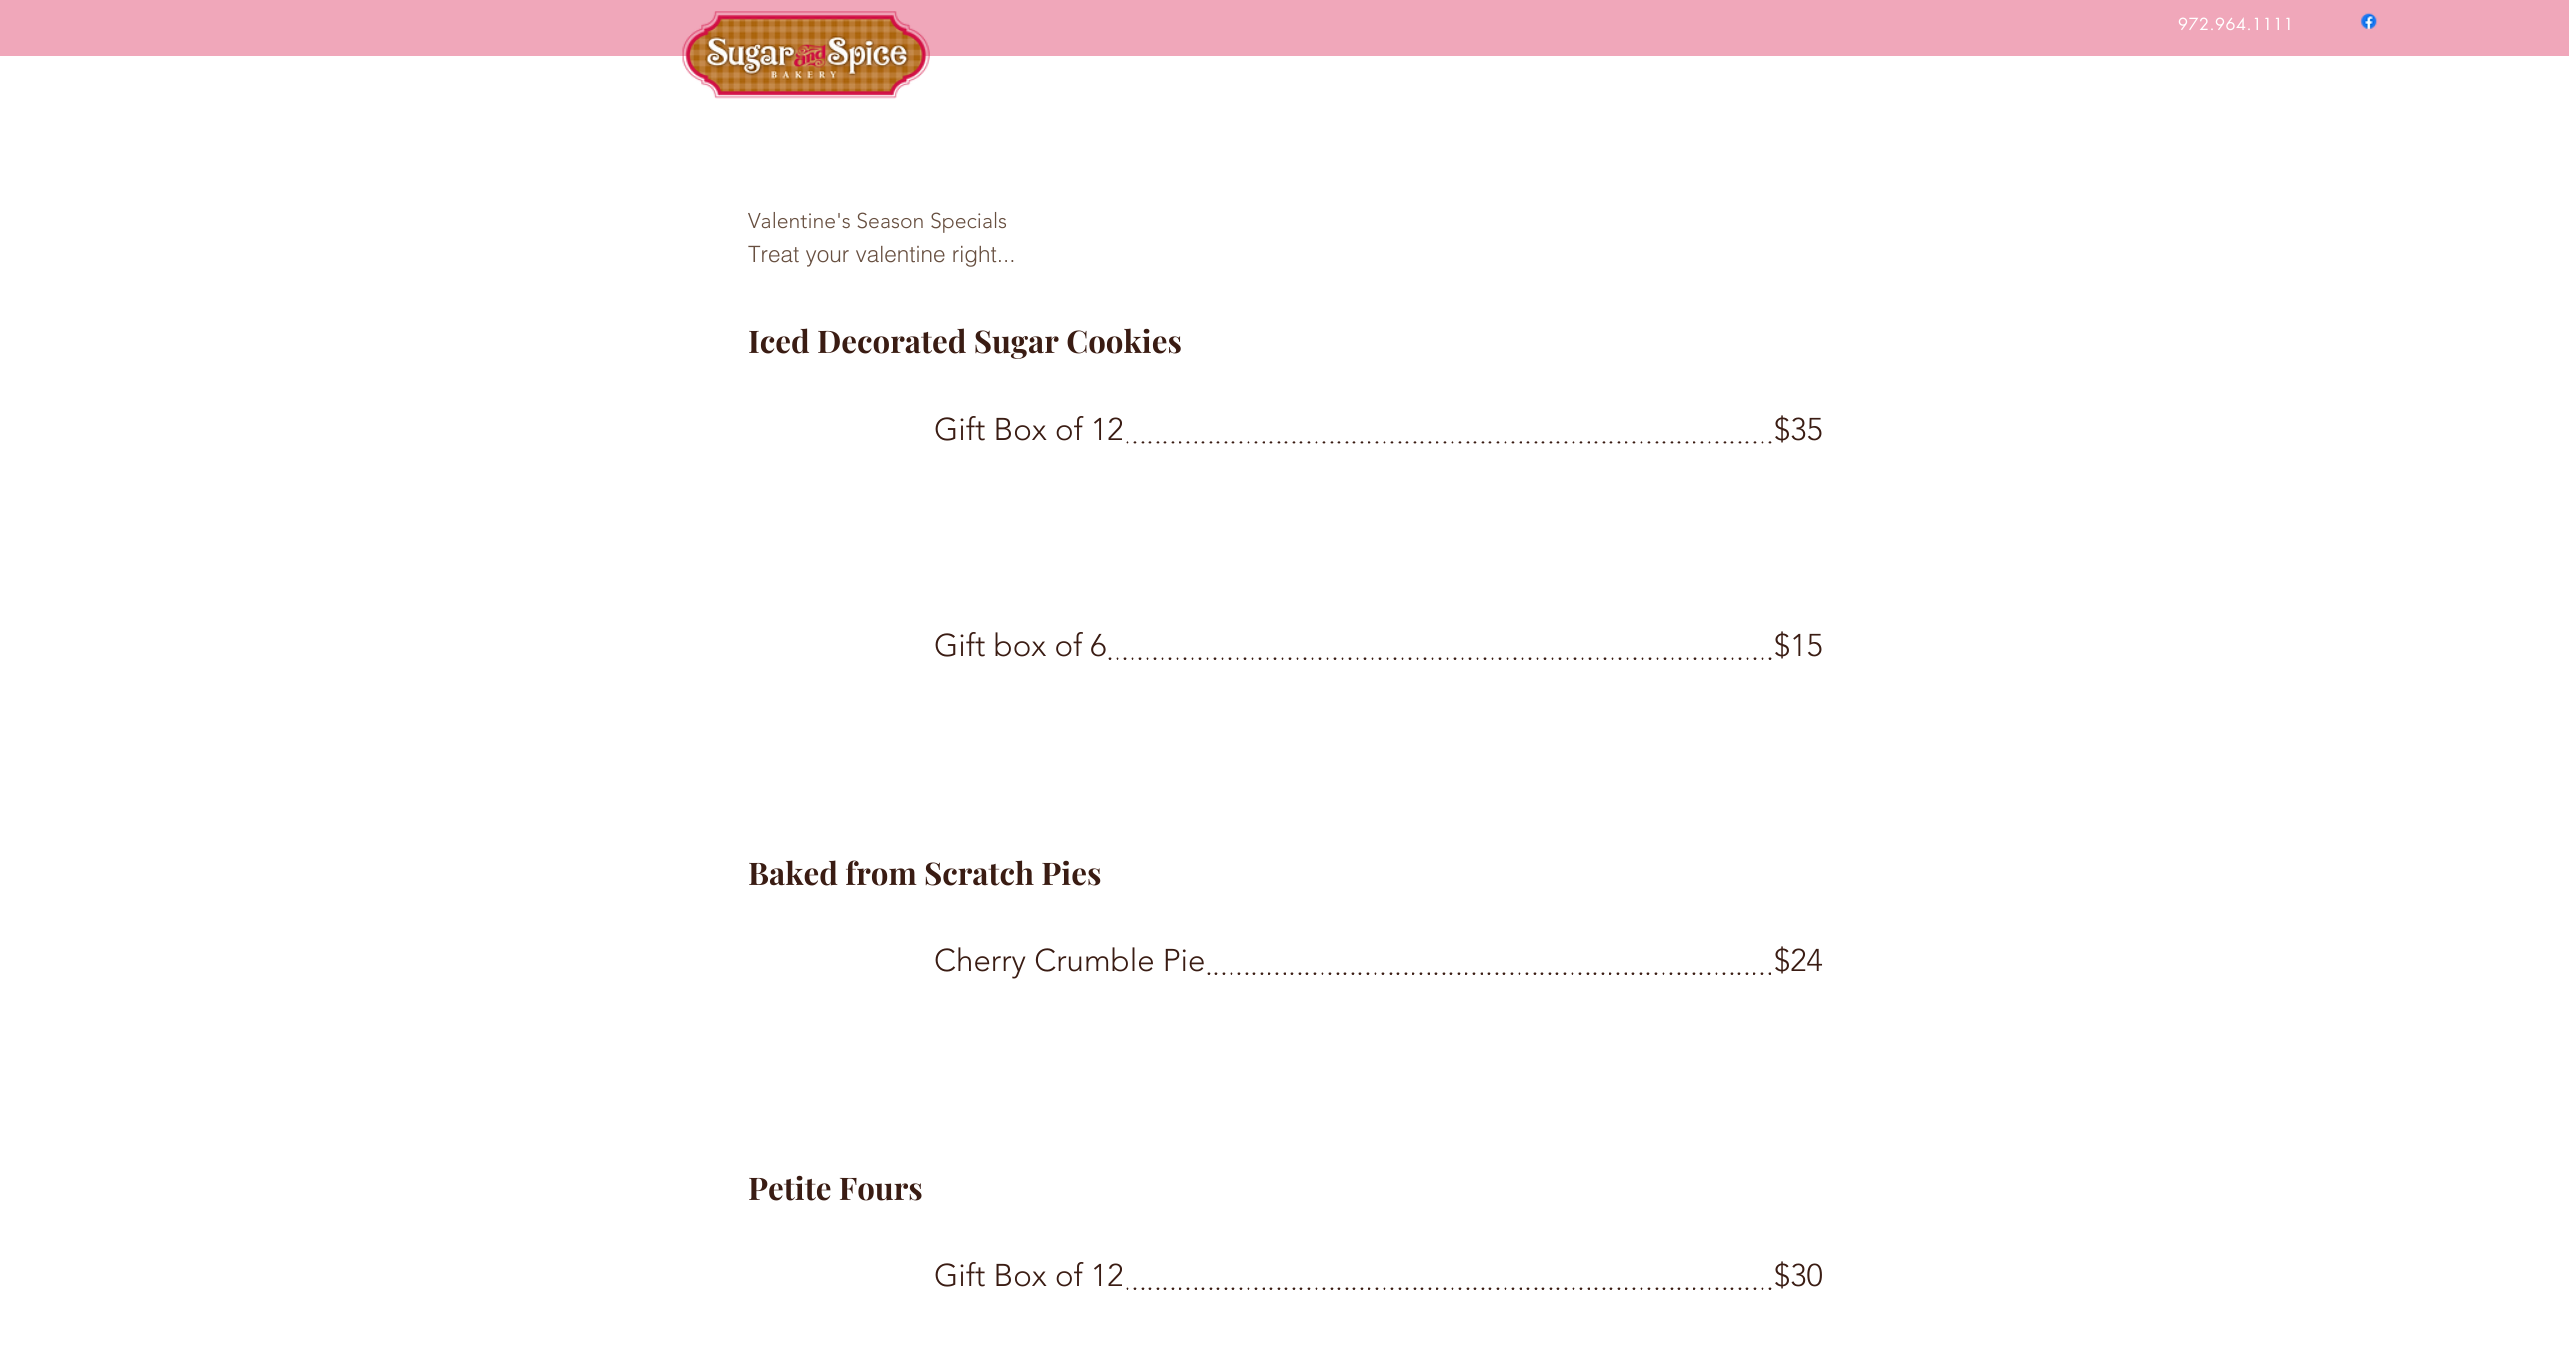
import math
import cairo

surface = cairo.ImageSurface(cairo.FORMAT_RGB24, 2569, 1353)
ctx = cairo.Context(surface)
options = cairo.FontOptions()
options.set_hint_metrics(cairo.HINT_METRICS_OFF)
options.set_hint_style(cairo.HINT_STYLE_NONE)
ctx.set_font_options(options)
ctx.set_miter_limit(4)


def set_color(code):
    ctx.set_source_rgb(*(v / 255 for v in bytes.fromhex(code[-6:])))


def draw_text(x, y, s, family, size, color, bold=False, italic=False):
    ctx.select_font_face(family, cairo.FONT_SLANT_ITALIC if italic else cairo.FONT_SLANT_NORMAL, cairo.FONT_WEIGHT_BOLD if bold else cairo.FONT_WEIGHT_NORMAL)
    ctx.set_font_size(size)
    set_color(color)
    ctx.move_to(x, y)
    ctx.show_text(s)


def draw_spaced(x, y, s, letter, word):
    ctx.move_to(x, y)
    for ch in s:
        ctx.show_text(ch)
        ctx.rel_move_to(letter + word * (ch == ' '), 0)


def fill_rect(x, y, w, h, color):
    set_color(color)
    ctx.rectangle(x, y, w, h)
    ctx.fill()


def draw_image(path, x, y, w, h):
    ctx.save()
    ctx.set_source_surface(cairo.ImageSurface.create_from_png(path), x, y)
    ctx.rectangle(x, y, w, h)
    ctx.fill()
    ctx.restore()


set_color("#ffffff")
ctx.paint()
fill_rect(0, 0, 2569, 56, "#f0a7ba")
draw_image("assets/img1.png", 682, 11, 248, 88)
ctx.select_font_face("futura")
ctx.set_font_size(16.25)
set_color("#ffffff")
draw_spaced(2178, 30, "972.964.1111", 0.5, 0)
draw_image("assets/img2.png", 2360, 12, 18, 18)
draw_text(748, 228, "Valentine's Season Specials", "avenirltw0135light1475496 Light", 21.25, "#674f40")
draw_text(748, 262, "Treat your valentine right...", "helvetica Light", 22.5, "#674f40")
draw_text(748, 353, "Iced Decorated Sugar Cookies", "Playfair Display", 31.25, "#3a1c13", bold=True)
draw_text(934, 440, "Gift Box of 12", "avenirltw0135light1475496 Light", 31.25, "#3a1c13")
draw_text(1774, 440, "$35", "avenirltw0135light1475496 Light", 31.25, "#3a1c13")
draw_image("assets/img3.png", 1126, 441, 646, 3)
draw_text(934, 656, "Gift box of 6", "avenirltw0135light1475496 Light", 31.25, "#3a1c13")
draw_text(1774, 656, "$15", "avenirltw0135light1475496 Light", 31.25, "#3a1c13")
draw_image("assets/img4.png", 1108, 657, 664, 3)
draw_text(748, 885, "Baked from Scratch Pies", "Playfair Display", 31.25, "#3a1c13", bold=True)
draw_text(934, 971, "Cherry Crumble Pie", "avenirltw0135light1475496 Light", 31.25, "#3a1c13")
draw_image("assets/img5.png", 1207, 972, 564, 3)
draw_text(1774, 971, "$24", "avenirltw0135light1475496 Light", 31.25, "#3a1c13")
draw_text(748, 1200, "Petite Fours", "Playfair Display", 31.25, "#3a1c13", bold=True)
draw_text(934, 1286, "Gift Box of 12", "avenirltw0135light1475496 Light", 31.25, "#3a1c13")
draw_text(1774, 1286, "$30", "avenirltw0135light1475496 Light", 31.25, "#3a1c13")
draw_image("assets/img6.png", 1126, 1287, 646, 3)
surface.write_to_png("output.png")
